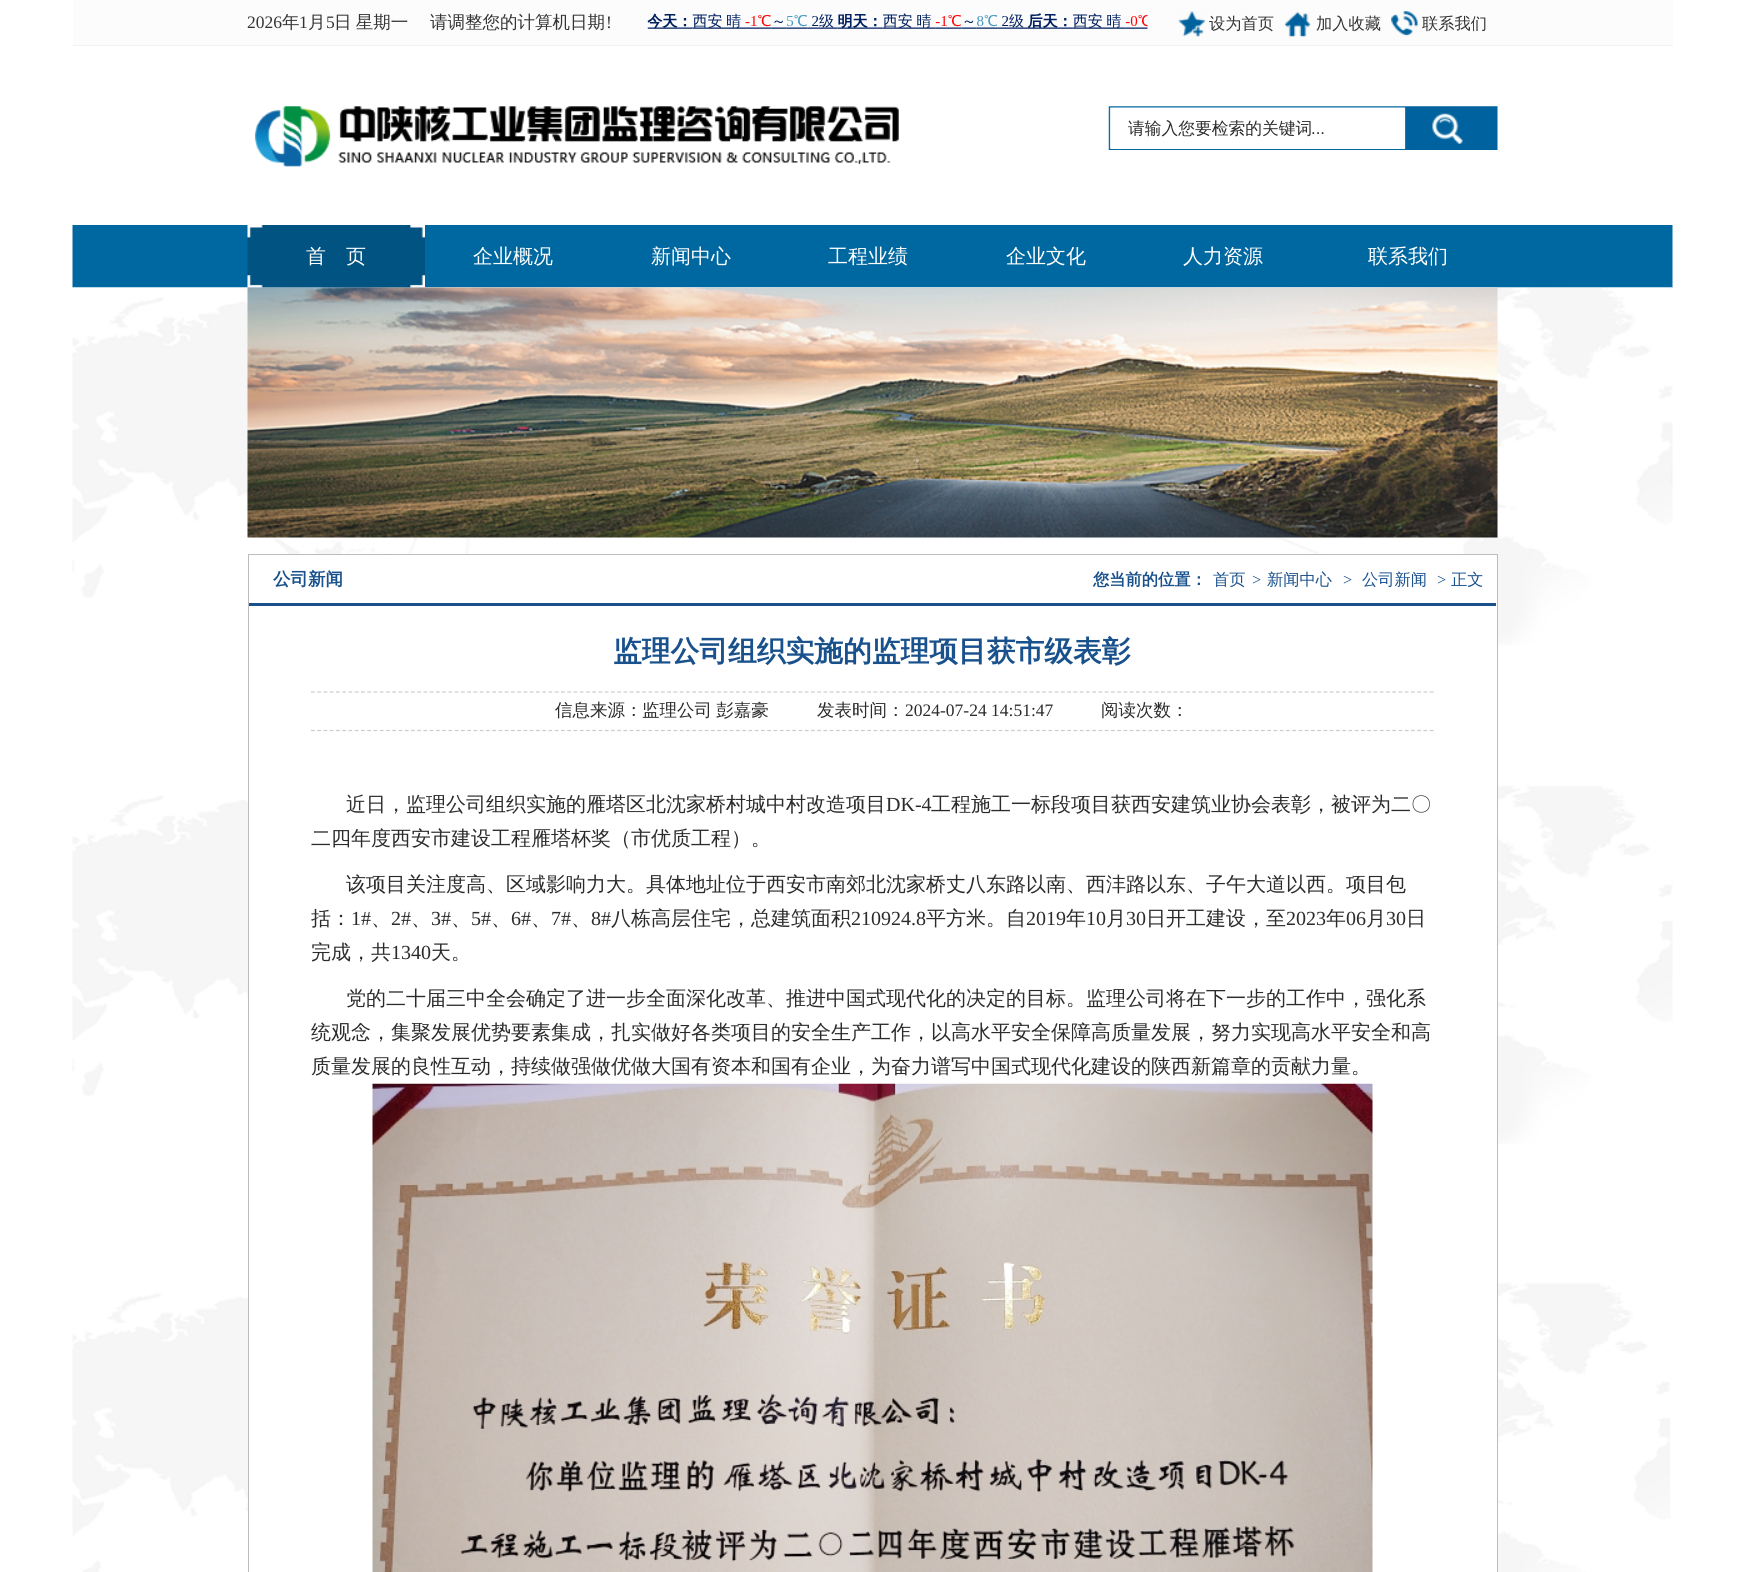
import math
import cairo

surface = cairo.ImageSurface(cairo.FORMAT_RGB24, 1743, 1572)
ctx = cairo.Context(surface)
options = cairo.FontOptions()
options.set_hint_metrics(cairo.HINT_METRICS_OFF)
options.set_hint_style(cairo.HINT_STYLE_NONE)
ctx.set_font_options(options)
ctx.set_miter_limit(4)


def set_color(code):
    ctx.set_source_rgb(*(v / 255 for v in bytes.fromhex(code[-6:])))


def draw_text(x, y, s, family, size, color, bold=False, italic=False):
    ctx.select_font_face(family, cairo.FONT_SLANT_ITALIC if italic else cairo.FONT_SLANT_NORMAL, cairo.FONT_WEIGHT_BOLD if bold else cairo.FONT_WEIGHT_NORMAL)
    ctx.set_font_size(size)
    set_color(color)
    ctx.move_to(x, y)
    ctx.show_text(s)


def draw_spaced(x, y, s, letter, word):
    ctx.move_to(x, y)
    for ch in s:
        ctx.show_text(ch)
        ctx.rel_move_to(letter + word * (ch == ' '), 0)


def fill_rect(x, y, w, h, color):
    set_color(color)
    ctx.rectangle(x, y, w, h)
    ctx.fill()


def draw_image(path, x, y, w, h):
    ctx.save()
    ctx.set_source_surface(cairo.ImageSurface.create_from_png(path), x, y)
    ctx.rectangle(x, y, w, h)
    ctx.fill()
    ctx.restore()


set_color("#ffffff")
ctx.paint()
fill_rect(73, 0, 1600, 45, "#fcfcfc")
fill_rect(73, 45, 1600, 1, "#f1f1f1")
draw_text(247, 28, "2026", "Liberation Serif", 17.5, "#333333")
draw_text(282, 28, "年", "WenQuanYi Zen Hei Medium", 17.5, "#333333")
draw_text(299, 28, "1", "Liberation Serif", 17.5, "#333333")
draw_text(308, 28, "月", "WenQuanYi Zen Hei Medium", 17.5, "#333333")
draw_text(326, 28, "5", "Liberation Serif", 17.5, "#333333")
ctx.select_font_face("WenQuanYi Zen Hei Medium")
draw_spaced(334, 28, "日 星期一 　请调整您的计算机日期", 0, -1)
draw_text(606, 28, "!", "Liberation Serif", 17.5, "#333333")
draw_image("assets/img1.png", 647, 13, 501, 16)
draw_image("assets/img2.png", 1178, 11, 27, 26)
draw_text(1209, 29, "设为首页", "WenQuanYi Zen Hei Medium", 16.25, "#333333")
draw_image("assets/img3.png", 1285, 12, 26, 25)
draw_text(1316, 29, "加入收藏", "WenQuanYi Zen Hei Medium", 16.25, "#333333")
draw_image("assets/img4.png", 1391, 11, 27, 25)
draw_text(1422, 29, "联系我们", "WenQuanYi Zen Hei Medium", 16.25, "#333333")
draw_image("assets/img5.png", 254, 106, 645, 61)
draw_image("assets/img6.png", 1108, 106, 390, 44)
fill_rect(1111, 109, 294, 40, "#ffffff")
draw_text(1128, 134, "请输入您要检索的关键词", "WenQuanYi Zen Hei Medium", 16.75, "#2b2b2b")
draw_text(1311, 134, "...", "Liberation Sans", 16.75, "#2b2b2b")
draw_image("assets/img7.png", 72, 225, 1601, 63)
draw_image("assets/img9.png", 72, 287, 1601, 1285)
draw_image("assets/img8.png", 247, 225, 178, 63)
draw_text(306, 263, "首", "WenQuanYi Zen Hei Medium", 20, "#ffffff")
draw_text(346, 263, "页", "WenQuanYi Zen Hei Medium", 20, "#ffffff")
draw_text(473, 263, "企业概况", "WenQuanYi Zen Hei Medium", 20, "#ffffff")
draw_text(651, 263, "新闻中心", "WenQuanYi Zen Hei Medium", 20, "#ffffff")
draw_text(828, 263, "工程业绩", "WenQuanYi Zen Hei Medium", 20, "#ffffff")
draw_text(1006, 263, "企业文化", "WenQuanYi Zen Hei Medium", 20, "#ffffff")
draw_text(1183, 263, "人力资源", "WenQuanYi Zen Hei Medium", 20, "#ffffff")
draw_text(1368, 263, "联系我们", "WenQuanYi Zen Hei Medium", 20, "#ffffff")
draw_image("assets/img10.png", 247, 287, 1251, 251)
ctx.rectangle(248.5, 554.5, 1249, 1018)
ctx.fill_preserve()
set_color("#bcbcbc")
ctx.set_line_width(1)
ctx.stroke()
fill_rect(249, 603, 1247, 3, "#19518c")
draw_text(273, 585, "公司新闻", "WenQuanYi Zen Hei", 17.5, "#19518c", bold=True)
draw_text(1093, 585, "您当前的位置：", "WenQuanYi Zen Hei", 16.25, "#19518c", bold=True)
draw_text(1213, 585, "首页", "WenQuanYi Zen Hei Medium", 16.25, "#19518c")
draw_text(1252, 585, ">", "Liberation Serif", 16.25, "#19518c")
draw_text(1267, 585, "新闻中心", "WenQuanYi Zen Hei Medium", 16.25, "#19518c")
draw_text(1343, 585, ">", "Liberation Serif", 16.25, "#19518c")
draw_text(1362, 585, "公司新闻", "WenQuanYi Zen Hei Medium", 16.25, "#19518c")
draw_text(1437, 585, ">", "Liberation Serif", 16.25, "#19518c")
draw_text(1451, 585, "正文", "WenQuanYi Zen Hei Medium", 16.25, "#19518c")
draw_text(613, 661, "监理公司组织实施的监理项目获市级表彰", "WenQuanYi Zen Hei", 28.75, "#19518c", bold=True)
ctx.new_path()
ctx.move_to(311, 692)
ctx.line_to(1434, 692)
set_color("#cccccc")
ctx.set_line_width(1.2)
ctx.set_dash([3.75, 2.5])
ctx.stroke()
ctx.new_path()
ctx.move_to(311, 730.5)
ctx.line_to(1434, 730.5)
ctx.stroke()
draw_text(555, 716, "信息来源：", "WenQuanYi Zen Hei Medium", 17.5, "#2b2b2b")
draw_spaced(642, 716, "监理公司 彭嘉豪", 0, -1)
draw_text(817, 716, "发表时间：", "WenQuanYi Zen Hei Medium", 17.5, "#2b2b2b")
draw_text(905, 716, "2024-07-24 14:51:47", "Liberation Serif", 17.5, "#2b2b2b")
draw_text(1101, 716, "阅读次数：", "WenQuanYi Zen Hei Medium", 17.5, "#2b2b2b")
draw_text(346, 811, "近日，监理公司组织实施的雁塔区北沈家桥村城中村改造项目", "WenQuanYi Zen Hei Medium", 20, "#2b2b2b")
draw_text(886, 811, "DK-4", "Liberation Serif", 20, "#2b2b2b")
draw_text(931, 811, "工程施工一标段项目获西安建筑业协会表彰，被评为二〇", "WenQuanYi Zen Hei Medium", 20, "#2b2b2b")
draw_text(311, 845, "二四年度西安市建设工程雁塔杯奖（市优质工程）。", "WenQuanYi Zen Hei Medium", 20, "#2b2b2b")
draw_text(346, 891, "该项目关注度高、区域影响力大。具体地址位于西安市南郊北沈家桥丈八东路以南、西沣路以东、子午大道以西。项目包", "WenQuanYi Zen Hei Medium", 20, "#2b2b2b")
draw_text(311, 925, "括：", "WenQuanYi Zen Hei Medium", 20, "#2b2b2b")
draw_text(351, 925, "1#", "Liberation Serif", 20, "#2b2b2b")
draw_text(371, 925, "、", "WenQuanYi Zen Hei Medium", 20, "#2b2b2b")
draw_text(391, 925, "2#", "Liberation Serif", 20, "#2b2b2b")
draw_text(411, 925, "、", "WenQuanYi Zen Hei Medium", 20, "#2b2b2b")
draw_text(431, 925, "3#", "Liberation Serif", 20, "#2b2b2b")
draw_text(451, 925, "、", "WenQuanYi Zen Hei Medium", 20, "#2b2b2b")
draw_text(471, 925, "5#", "Liberation Serif", 20, "#2b2b2b")
draw_text(491, 925, "、", "WenQuanYi Zen Hei Medium", 20, "#2b2b2b")
draw_text(511, 925, "6#", "Liberation Serif", 20, "#2b2b2b")
draw_text(531, 925, "、", "WenQuanYi Zen Hei Medium", 20, "#2b2b2b")
draw_text(551, 925, "7#", "Liberation Serif", 20, "#2b2b2b")
draw_text(571, 925, "、", "WenQuanYi Zen Hei Medium", 20, "#2b2b2b")
draw_text(591, 925, "8#", "Liberation Serif", 20, "#2b2b2b")
draw_text(611, 925, "八栋高层住宅，总建筑面积", "WenQuanYi Zen Hei Medium", 20, "#2b2b2b")
draw_text(851, 925, "210924.8", "Liberation Serif", 20, "#2b2b2b")
draw_text(926, 925, "平方米。自", "WenQuanYi Zen Hei Medium", 20, "#2b2b2b")
draw_text(1026, 925, "2019", "Liberation Serif", 20, "#2b2b2b")
draw_text(1066, 925, "年", "WenQuanYi Zen Hei Medium", 20, "#2b2b2b")
draw_text(1086, 925, "10", "Liberation Serif", 20, "#2b2b2b")
draw_text(1106, 925, "月", "WenQuanYi Zen Hei Medium", 20, "#2b2b2b")
draw_text(1126, 925, "30", "Liberation Serif", 20, "#2b2b2b")
draw_text(1146, 925, "日开工建设，至", "WenQuanYi Zen Hei Medium", 20, "#2b2b2b")
draw_text(1286, 925, "2023", "Liberation Serif", 20, "#2b2b2b")
draw_text(1326, 925, "年", "WenQuanYi Zen Hei Medium", 20, "#2b2b2b")
draw_text(1346, 925, "06", "Liberation Serif", 20, "#2b2b2b")
draw_text(1366, 925, "月", "WenQuanYi Zen Hei Medium", 20, "#2b2b2b")
draw_text(1386, 925, "30", "Liberation Serif", 20, "#2b2b2b")
draw_text(1406, 925, "日", "WenQuanYi Zen Hei Medium", 20, "#2b2b2b")
draw_text(311, 959, "完成，共", "WenQuanYi Zen Hei Medium", 20, "#2b2b2b")
draw_text(391, 959, "1340", "Liberation Serif", 20, "#2b2b2b")
draw_text(431, 959, "天。", "WenQuanYi Zen Hei Medium", 20, "#2b2b2b")
draw_text(346, 1005, "党的二十届三中全会确定了进一步全面深化改革、推进中国式现代化的决定的目标。监理公司将在下一步的工作中，强化系", "WenQuanYi Zen Hei Medium", 20, "#2b2b2b")
draw_text(311, 1039, "统观念，集聚发展优势要素集成，扎实做好各类项目的安全生产工作，以高水平安全保障高质量发展，努力实现高水平安全和高", "WenQuanYi Zen Hei Medium", 20, "#2b2b2b")
draw_text(311, 1073, "质量发展的良性互动，持续做强做优做大国有资本和国有企业，为奋力谱写中国式现代化建设的陕西新篇章的贡献力量。", "WenQuanYi Zen Hei Medium", 20, "#2b2b2b")
draw_image("assets/img11.png", 372, 1083, 1001, 489)
surface.write_to_png("output.png")
